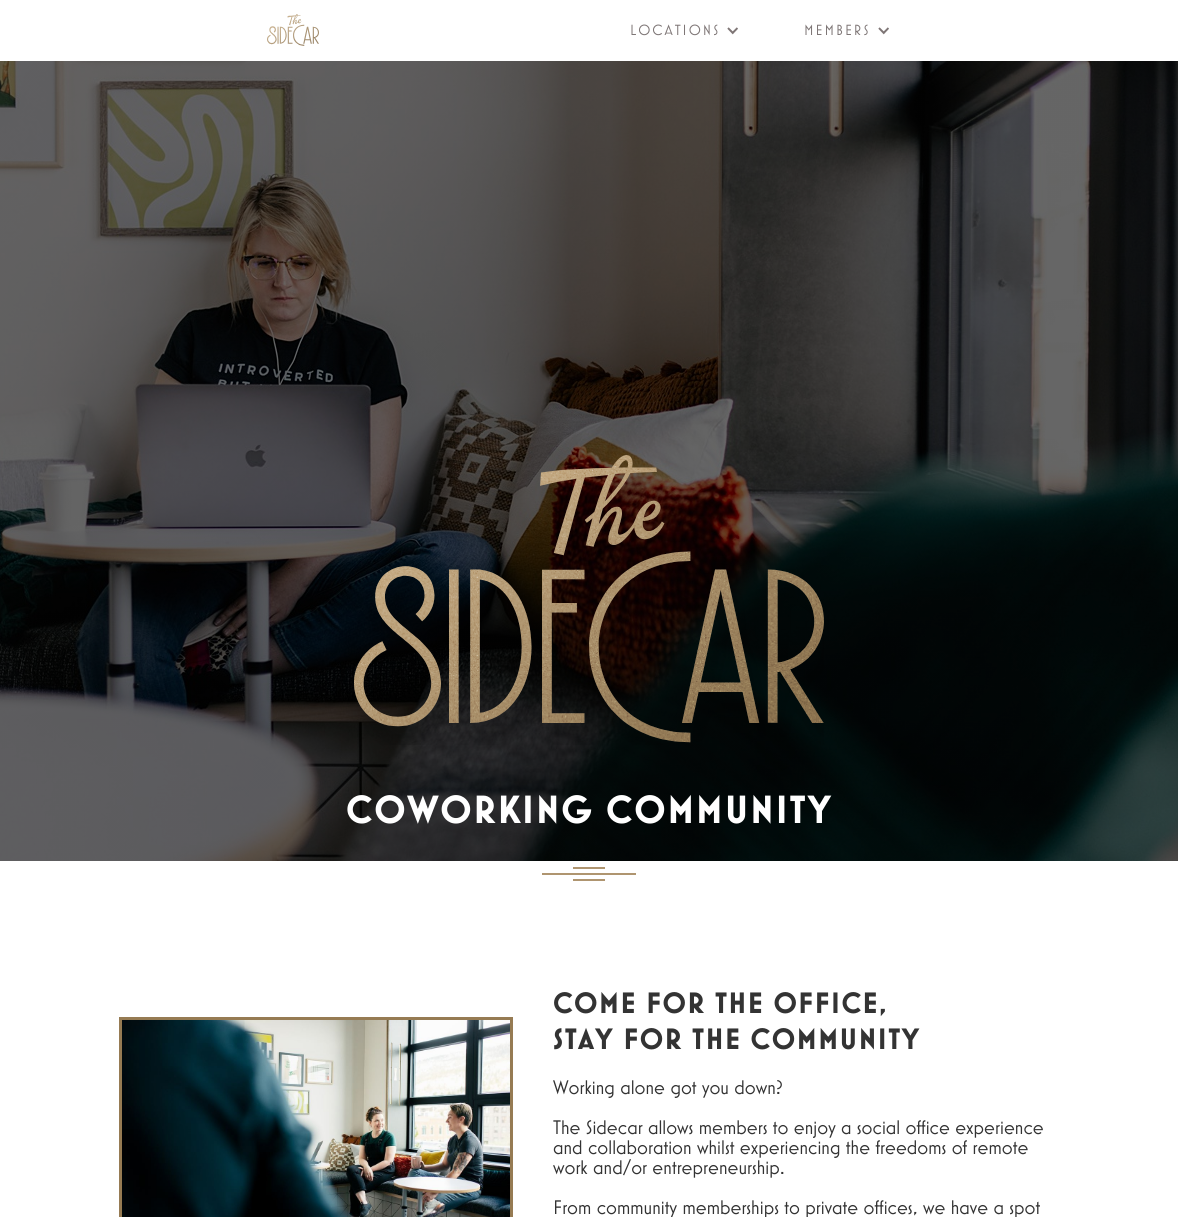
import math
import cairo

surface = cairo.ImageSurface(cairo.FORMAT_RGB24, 1178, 1217)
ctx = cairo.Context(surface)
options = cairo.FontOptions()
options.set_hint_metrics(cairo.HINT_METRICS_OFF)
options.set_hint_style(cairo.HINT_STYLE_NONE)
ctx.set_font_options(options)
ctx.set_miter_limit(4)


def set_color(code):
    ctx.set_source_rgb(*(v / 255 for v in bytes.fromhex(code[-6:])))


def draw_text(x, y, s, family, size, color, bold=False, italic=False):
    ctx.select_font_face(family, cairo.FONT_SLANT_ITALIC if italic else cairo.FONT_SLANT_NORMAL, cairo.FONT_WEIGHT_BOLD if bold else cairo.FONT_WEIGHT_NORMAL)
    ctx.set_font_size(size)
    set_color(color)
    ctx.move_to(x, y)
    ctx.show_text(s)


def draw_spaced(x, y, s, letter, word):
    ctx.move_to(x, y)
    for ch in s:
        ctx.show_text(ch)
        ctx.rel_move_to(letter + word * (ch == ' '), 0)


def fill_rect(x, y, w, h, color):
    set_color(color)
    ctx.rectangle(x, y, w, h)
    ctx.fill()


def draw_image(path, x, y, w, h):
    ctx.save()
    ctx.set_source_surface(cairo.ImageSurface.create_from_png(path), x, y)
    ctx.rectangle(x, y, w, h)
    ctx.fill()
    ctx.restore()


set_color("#ffffff")
ctx.paint()
draw_image("assets/img1.png", 267, 14, 52, 32)
ctx.select_font_face("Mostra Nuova")
ctx.set_font_size(15)
set_color("#7e7676")
draw_spaced(630, 35, "LOCATIONS", 2, 0)
draw_image("assets/img2.png", 727, 27, 11, 8)
draw_spaced(804, 35, "MEMBERS", 2, 0)
draw_image("assets/img2.png", 878, 27, 11, 8)
draw_image("assets/img3.png", 0, 61, 1178, 800)
draw_image("assets/img4.png", 354, 455, 470, 290)
ctx.select_font_face("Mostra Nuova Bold", cairo.FONT_SLANT_NORMAL, cairo.FONT_WEIGHT_BOLD)
ctx.set_font_size(40)
set_color("#ffffff")
draw_spaced(346, 823, "COWORKING COMMUNITY", 2, 0)
fill_rect(542, 873, 94, 2, "#af9570")
fill_rect(573, 867, 32, 2, "#af9570")
fill_rect(573, 879, 32, 2, "#af9570")
ctx.rectangle(120.5, 1018.5, 391, 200)
set_color("#967b53")
ctx.set_line_width(3)
ctx.stroke()
draw_image("assets/img5.png", 122, 1020, 388, 197)
ctx.set_font_size(30)
set_color("#333333")
draw_spaced(553, 1013, "COME FOR THE OFFICE,", 1.5, 0)
draw_spaced(553, 1049, "STAY FOR THE COMMUNITY", 1.5, 0)
draw_text(553, 1094, "Working alone got you down?", "Mostra Nuova", 20, "#333333")
draw_text(553, 1134, "The Sidecar allows members to enjoy a social office experience", "Mostra Nuova", 20, "#333333")
draw_text(553, 1154, "and collaboration whilst experiencing the freedoms of remote", "Mostra Nuova", 20, "#333333")
draw_text(553, 1174, "work and/or entrepreneurship.", "Mostra Nuova", 20, "#333333")
draw_text(553, 1214, "From community memberships to private offices, we have a spot", "Mostra Nuova", 20, "#333333")
surface.write_to_png("output.png")
